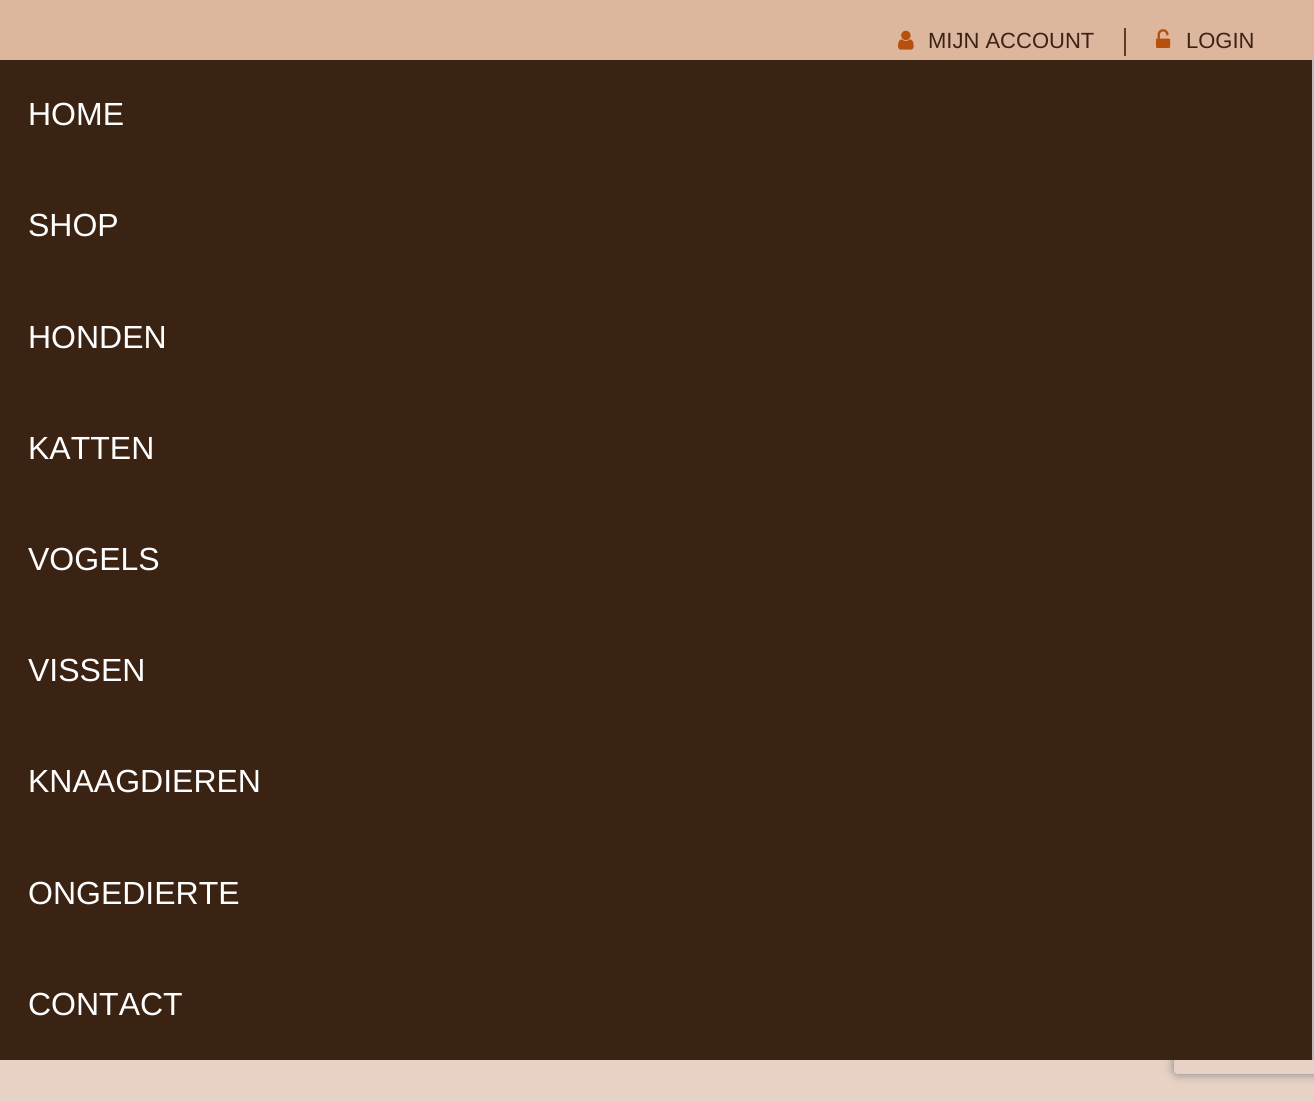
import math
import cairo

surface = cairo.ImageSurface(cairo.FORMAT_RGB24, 1314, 1102)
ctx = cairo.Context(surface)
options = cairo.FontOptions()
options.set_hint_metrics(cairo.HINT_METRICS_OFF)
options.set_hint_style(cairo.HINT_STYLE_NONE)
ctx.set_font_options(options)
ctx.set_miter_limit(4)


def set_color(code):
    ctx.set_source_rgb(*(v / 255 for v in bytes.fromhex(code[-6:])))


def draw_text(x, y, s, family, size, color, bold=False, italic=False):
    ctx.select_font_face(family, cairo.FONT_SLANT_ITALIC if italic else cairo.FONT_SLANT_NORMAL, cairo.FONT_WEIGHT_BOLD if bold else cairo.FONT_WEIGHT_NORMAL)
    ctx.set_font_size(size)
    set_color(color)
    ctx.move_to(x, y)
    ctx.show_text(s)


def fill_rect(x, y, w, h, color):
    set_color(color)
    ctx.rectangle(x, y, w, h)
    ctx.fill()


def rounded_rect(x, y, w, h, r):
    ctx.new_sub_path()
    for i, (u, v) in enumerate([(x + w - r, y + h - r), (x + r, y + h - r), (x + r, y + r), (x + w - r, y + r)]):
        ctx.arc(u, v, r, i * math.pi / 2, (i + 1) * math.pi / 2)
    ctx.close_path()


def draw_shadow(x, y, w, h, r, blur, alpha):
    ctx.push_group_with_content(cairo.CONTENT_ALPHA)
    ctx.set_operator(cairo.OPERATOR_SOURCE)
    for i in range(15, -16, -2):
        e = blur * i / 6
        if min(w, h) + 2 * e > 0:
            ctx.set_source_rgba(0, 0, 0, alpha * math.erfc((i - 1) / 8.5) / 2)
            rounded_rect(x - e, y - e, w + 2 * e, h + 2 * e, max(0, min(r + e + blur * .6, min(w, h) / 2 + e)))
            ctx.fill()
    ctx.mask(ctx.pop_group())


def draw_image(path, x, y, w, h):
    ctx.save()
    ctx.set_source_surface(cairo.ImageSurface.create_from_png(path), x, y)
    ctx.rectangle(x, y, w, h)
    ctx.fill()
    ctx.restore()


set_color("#e7d2c5")
ctx.paint()
fill_rect(0, 0, 1314, 60, "#ddb69e")
draw_image("assets/img1.png", 898, 30, 16, 20)
draw_text(928, 48, "MIJN ACCOUNT", "Liberation Sans", 22, "#3b2314")
fill_rect(1124, 28, 2, 28, "#613a21")
draw_image("assets/img2.png", 1156, 29, 15, 19)
draw_text(1186, 48, "LOGIN", "Liberation Sans", 22, "#3b2314")
ctx.save()
ctx.set_fill_rule(cairo.FILL_RULE_EVEN_ODD)
ctx.new_path()
ctx.move_to(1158, 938)
ctx.line_to(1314, 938)
ctx.line_to(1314, 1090)
ctx.line_to(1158, 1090)
ctx.close_path()
ctx.move_to(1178, 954)
ctx.line_to(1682, 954)
ctx.curve_to(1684, 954, 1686, 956, 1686, 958)
ctx.line_to(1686, 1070)
ctx.curve_to(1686, 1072, 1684, 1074, 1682, 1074)
ctx.line_to(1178, 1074)
ctx.curve_to(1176, 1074, 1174, 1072, 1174, 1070)
ctx.line_to(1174, 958)
ctx.curve_to(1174, 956, 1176, 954, 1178, 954)
ctx.close_path()
ctx.clip()
set_color("#808080")
draw_shadow(1174, 954, 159, 120, 4, 5, 1)
ctx.restore()
fill_rect(0, 60, 1312, 1000, "#3b2314")
fill_rect(1312, 60, 2, 1000, "#bbbbbb")
draw_text(28, 125, "HOME", "Liberation Sans", 32, "#ffffff")
draw_text(28, 236, "SHOP", "Liberation Sans", 32, "#ffffff")
draw_text(28, 348, "HONDEN", "Liberation Sans", 32, "#ffffff")
draw_text(28, 459, "KATTEN", "Liberation Sans", 32, "#ffffff")
draw_text(28, 570, "VOGELS", "Liberation Sans", 32, "#ffffff")
draw_text(28, 681, "VISSEN", "Liberation Sans", 32, "#ffffff")
draw_text(28, 792, "KNAAGDIEREN", "Liberation Sans", 32, "#ffffff")
draw_text(28, 904, "ONGEDIERTE", "Liberation Sans", 32, "#ffffff")
draw_text(28, 1015, "CONTACT", "Liberation Sans", 32, "#ffffff")
surface.write_to_png("output.png")
